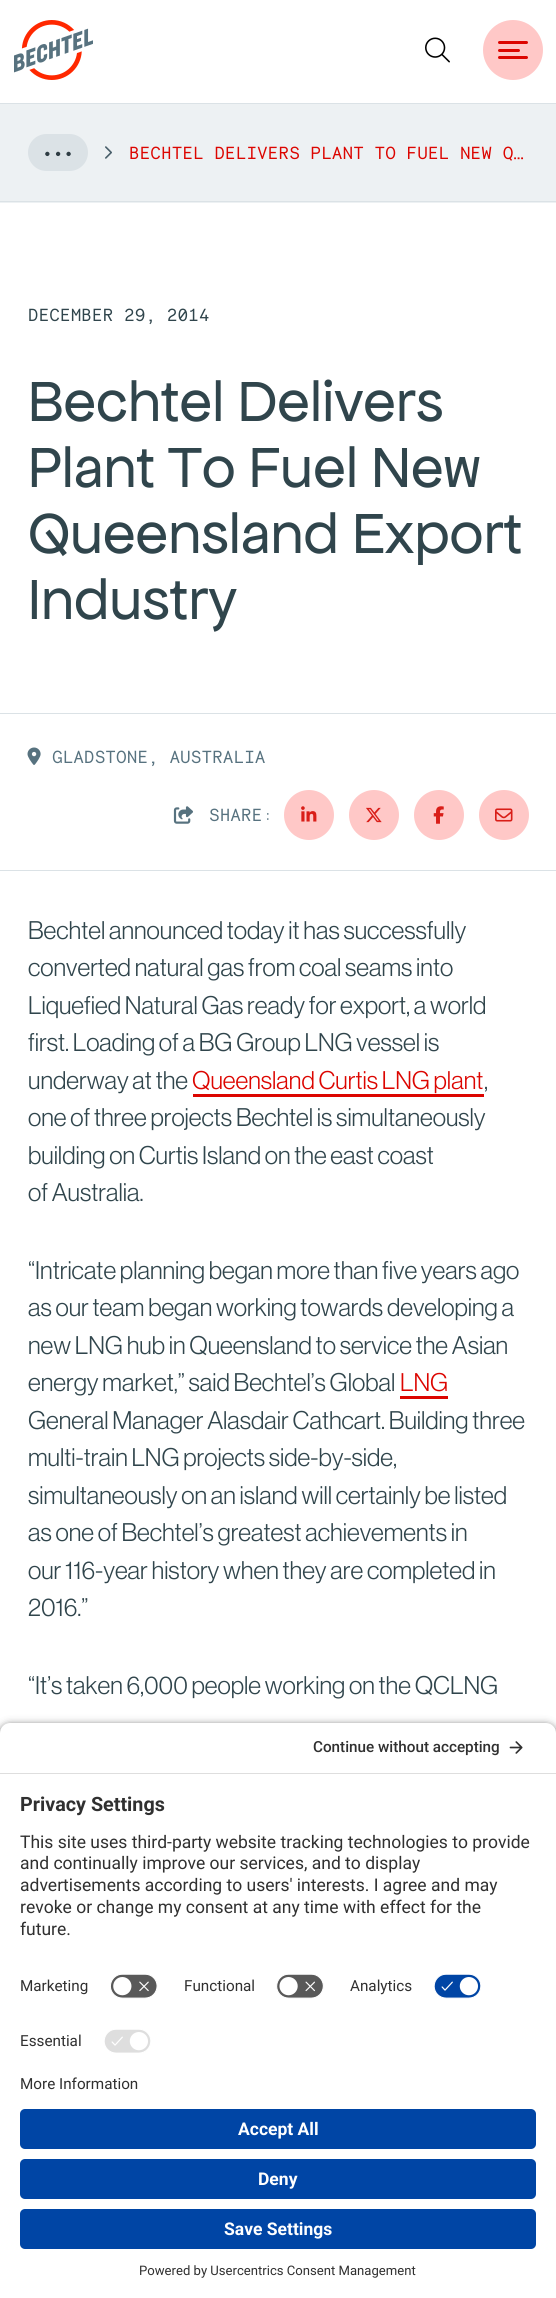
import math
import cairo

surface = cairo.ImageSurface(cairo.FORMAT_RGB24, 556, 2298)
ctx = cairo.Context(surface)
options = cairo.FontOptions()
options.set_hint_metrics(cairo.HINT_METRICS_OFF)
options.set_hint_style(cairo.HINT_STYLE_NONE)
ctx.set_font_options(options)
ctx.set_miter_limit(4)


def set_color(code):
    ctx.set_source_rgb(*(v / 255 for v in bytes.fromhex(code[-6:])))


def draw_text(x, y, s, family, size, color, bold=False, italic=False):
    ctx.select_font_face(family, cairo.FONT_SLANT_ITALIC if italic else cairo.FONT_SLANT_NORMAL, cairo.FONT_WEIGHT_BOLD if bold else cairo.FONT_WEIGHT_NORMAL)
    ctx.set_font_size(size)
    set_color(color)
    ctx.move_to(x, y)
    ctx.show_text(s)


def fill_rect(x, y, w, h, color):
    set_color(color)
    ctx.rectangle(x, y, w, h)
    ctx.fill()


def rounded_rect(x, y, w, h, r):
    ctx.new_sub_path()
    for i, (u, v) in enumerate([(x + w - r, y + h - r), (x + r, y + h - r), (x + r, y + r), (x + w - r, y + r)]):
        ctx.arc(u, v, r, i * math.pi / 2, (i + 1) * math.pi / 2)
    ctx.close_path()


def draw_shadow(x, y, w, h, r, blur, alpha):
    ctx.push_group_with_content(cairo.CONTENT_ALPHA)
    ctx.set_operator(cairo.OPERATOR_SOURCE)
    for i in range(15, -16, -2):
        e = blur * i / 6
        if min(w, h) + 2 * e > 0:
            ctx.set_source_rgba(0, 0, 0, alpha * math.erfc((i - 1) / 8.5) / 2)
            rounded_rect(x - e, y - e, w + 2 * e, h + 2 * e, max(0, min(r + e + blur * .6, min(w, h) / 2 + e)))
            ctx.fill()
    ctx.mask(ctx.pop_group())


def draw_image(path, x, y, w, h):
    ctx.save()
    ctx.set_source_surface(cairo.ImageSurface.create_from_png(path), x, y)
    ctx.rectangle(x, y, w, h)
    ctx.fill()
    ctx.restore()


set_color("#ffffff")
ctx.paint()
draw_image("assets/img1.png", 14, 20, 79, 60)
draw_image("assets/img2.png", 425, 37, 25, 26)
set_color("#ffc8c7")
ctx.arc(513, 50, 30, 0, 2 * math.pi)
ctx.fill()
set_color("#dc0500")
rounded_rect(498, 41, 30, 3, 1.5)
ctx.fill()
rounded_rect(498, 49, 22, 3, 1.5)
ctx.fill()
rounded_rect(498, 56, 30, 3, 1.5)
ctx.fill()
fill_rect(0, 103, 556, 1, "#dbe2e6")
fill_rect(0, 104, 556, 99, "#edf1f3")
fill_rect(0, 201, 556, 1, "#dbe2e6")
rounded_rect(28, 134, 60, 37, 18.5)
ctx.fill()
draw_text(42, 159, "•••", "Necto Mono", 17.5, "#2e3c43")
draw_image("assets/img3.png", 105, 146, 7, 13)
draw_text(129, 159, "BECHTEL DELIVERS PLANT TO FUEL NEW Q…", "Necto Mono", 17.5, "#dc0500")
draw_text(28, 321, "DECEMBER 29, 2014", "Necto Mono", 17.5, "#30454c")
draw_text(28, 421, "Bechtel Delivers", "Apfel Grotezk", 60, "#30454c")
draw_text(28, 487, "Plant To Fuel New", "Apfel Grotezk", 60, "#30454c")
draw_text(28, 553, "Queensland Export", "Apfel Grotezk", 60, "#30454c")
draw_text(28, 619, "Industry", "Apfel Grotezk", 60, "#30454c")
fill_rect(0, 713, 556, 1, "#dbe2e6")
fill_rect(0, 870, 556, 1, "#dbe2e6")
draw_image("assets/img4.png", 27, 747, 14, 18)
draw_text(52, 763, "GLADSTONE, AUSTRALIA", "Necto Mono", 17.5, "#57727f")
draw_image("assets/img5.png", 173, 806, 20, 18)
draw_text(209, 821, "SHARE:", "Necto Mono", 17.5, "#57727f")
set_color("#ffc8c7")
ctx.new_path()
ctx.arc(309, 815, 25, 0, 2 * math.pi)
ctx.fill()
draw_image("assets/img6.png", 301, 806, 16, 16)
ctx.arc(374, 815, 25, 0, 2 * math.pi)
ctx.fill()
draw_image("assets/img7.png", 366, 807, 16, 16)
ctx.arc(439, 815, 25, 0, 2 * math.pi)
ctx.fill()
draw_image("assets/img8.png", 433, 806, 11, 18)
ctx.arc(504, 815, 25, 0, 2 * math.pi)
ctx.fill()
draw_image("assets/img9.png", 495, 808, 18, 14)
draw_text(28, 939, "Bechtel announced today it has successfully", "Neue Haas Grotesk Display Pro", 25, "#30454c")
draw_text(28, 976, "converted natural gas from coal seams into", "Neue Haas Grotesk Display Pro", 25, "#30454c")
draw_text(28, 1014, "Liquefied Natural Gas ready for export, a world", "Neue Haas Grotesk Display Pro", 25, "#30454c")
draw_text(28, 1051, "first. Loading of a BG Group LNG vessel is", "Neue Haas Grotesk Display Pro", 25, "#30454c")
draw_text(28, 1089, "underway at the", "Neue Haas Grotesk Display Pro", 25, "#30454c")
draw_text(192, 1089, "Queensland Curtis LNG plant", "Neue Haas Grotesk Display Pro", 25, "#dc0500")
fill_rect(193, 1094, 291, 3, "#dc0500")
draw_text(484, 1089, ",", "Neue Haas Grotesk Display Pro", 25, "#30454c")
draw_text(28, 1126, "one of three projects Bechtel is simultaneously", "Neue Haas Grotesk Display Pro", 25, "#30454c")
draw_text(28, 1164, "building on Curtis Island on the east coast", "Neue Haas Grotesk Display Pro", 25, "#30454c")
draw_text(28, 1201, "of Australia.", "Neue Haas Grotesk Display Pro", 25, "#30454c")
draw_text(28, 1279, "“Intricate planning began more than five years ago", "Neue Haas Grotesk Display Pro", 25, "#30454c")
draw_text(28, 1316, "as our team began working towards developing a", "Neue Haas Grotesk Display Pro", 25, "#30454c")
draw_text(28, 1354, "new LNG hub in Queensland to service the Asian", "Neue Haas Grotesk Display Pro", 25, "#30454c")
draw_text(28, 1391, "energy market,” said Bechtel’s Global", "Neue Haas Grotesk Display Pro", 25, "#30454c")
draw_text(400, 1391, "LNG", "Neue Haas Grotesk Display Pro", 25, "#dc0500")
fill_rect(400, 1396, 48, 3, "#dc0500")
draw_text(28, 1429, "General Manager Alasdair Cathcart. Building three", "Neue Haas Grotesk Display Pro", 25, "#30454c")
draw_text(28, 1466, "multi-train LNG projects side-by-side,", "Neue Haas Grotesk Display Pro", 25, "#30454c")
draw_text(28, 1504, "simultaneously on an island will certainly be listed", "Neue Haas Grotesk Display Pro", 25, "#30454c")
draw_text(28, 1541, "as one of Bechtel’s greatest achievements in", "Neue Haas Grotesk Display Pro", 25, "#30454c")
draw_text(28, 1579, "our 116-year history when they are completed in", "Neue Haas Grotesk Display Pro", 25, "#30454c")
draw_text(28, 1616, "2016.”", "Neue Haas Grotesk Display Pro", 25, "#30454c")
draw_text(28, 1694, "“It’s taken 6,000 people working on the QCLNG", "Neue Haas Grotesk Display Pro", 25, "#30454c")
set_color("#000000")
draw_shadow(0, 1726, 556, 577, 10, 4.5, 0.8)
set_color("#ffffff")
ctx.new_path()
ctx.move_to(10, 1723)
ctx.line_to(546, 1723)
ctx.curve_to(551.5, 1723, 556, 1727.5, 556, 1733)
ctx.line_to(556, 1774)
ctx.line_to(0, 1774)
ctx.line_to(0, 1733)
ctx.curve_to(0, 1727.5, 4.5, 1723, 10, 1723)
ctx.close_path()
ctx.fill()
fill_rect(0, 1773, 556, 1, "#dedede")
draw_text(313, 1752, "Continue without accepting", "Roboto Medium", 15.25, "#303030")
draw_image("assets/img10.png", 509, 1741, 14, 13)
fill_rect(0, 1774, 556, 524, "#ffffff")
draw_text(20, 1811, "Privacy Settings", "Roboto", 19.75, "#303030", bold=True)
draw_text(20, 1848, "This site uses third-party website tracking technologies to provide", "Roboto", 17.5, "#303030")
draw_text(20, 1869, "and continually improve our services, and to display", "Roboto", 17.5, "#303030")
draw_text(20, 1891, "advertisements according to users' interests. I agree and may", "Roboto", 17.5, "#303030")
draw_text(20, 1913, "revoke or change my consent at any time with effect for the", "Roboto", 17.5, "#303030")
draw_text(20, 1935, "future.", "Roboto", 17.5, "#303030")
draw_text(20, 1991, "Marketing", "Roboto", 15.25, "#303030")
draw_image("assets/img11.png", 110, 1974, 48, 25)
draw_text(184, 1991, "Functional", "Roboto", 15.25, "#303030")
draw_image("assets/img12.png", 276, 1974, 48, 25)
draw_text(350, 1991, "Analytics", "Roboto", 15.25, "#303030")
draw_image("assets/img13.png", 434, 1974, 47, 25)
draw_text(20, 2046, "Essential", "Roboto", 15.25, "#303030")
draw_image("assets/img14.png", 104, 2029, 47, 24)
draw_text(20, 2089, "More Information", "Roboto", 15.25, "#303030")
set_color("#0045a5")
rounded_rect(20, 2109, 516, 40, 5)
ctx.fill()
draw_text(238, 2135, "Accept All", "Roboto", 17.5, "#ffffff", bold=True)
set_color("#0045a5")
rounded_rect(20, 2159, 516, 40, 5)
ctx.fill()
draw_text(258, 2185, "Deny", "Roboto", 17.5, "#ffffff", bold=True)
set_color("#0045a5")
rounded_rect(20, 2209, 516, 40, 5)
ctx.fill()
draw_text(224, 2235, "Save Settings", "Roboto", 17.5, "#ffffff", bold=True)
draw_text(139, 2275, "Powered by Usercentrics Consent Management", "Roboto", 13.1, "#303030")
surface.write_to_png("output.png")
